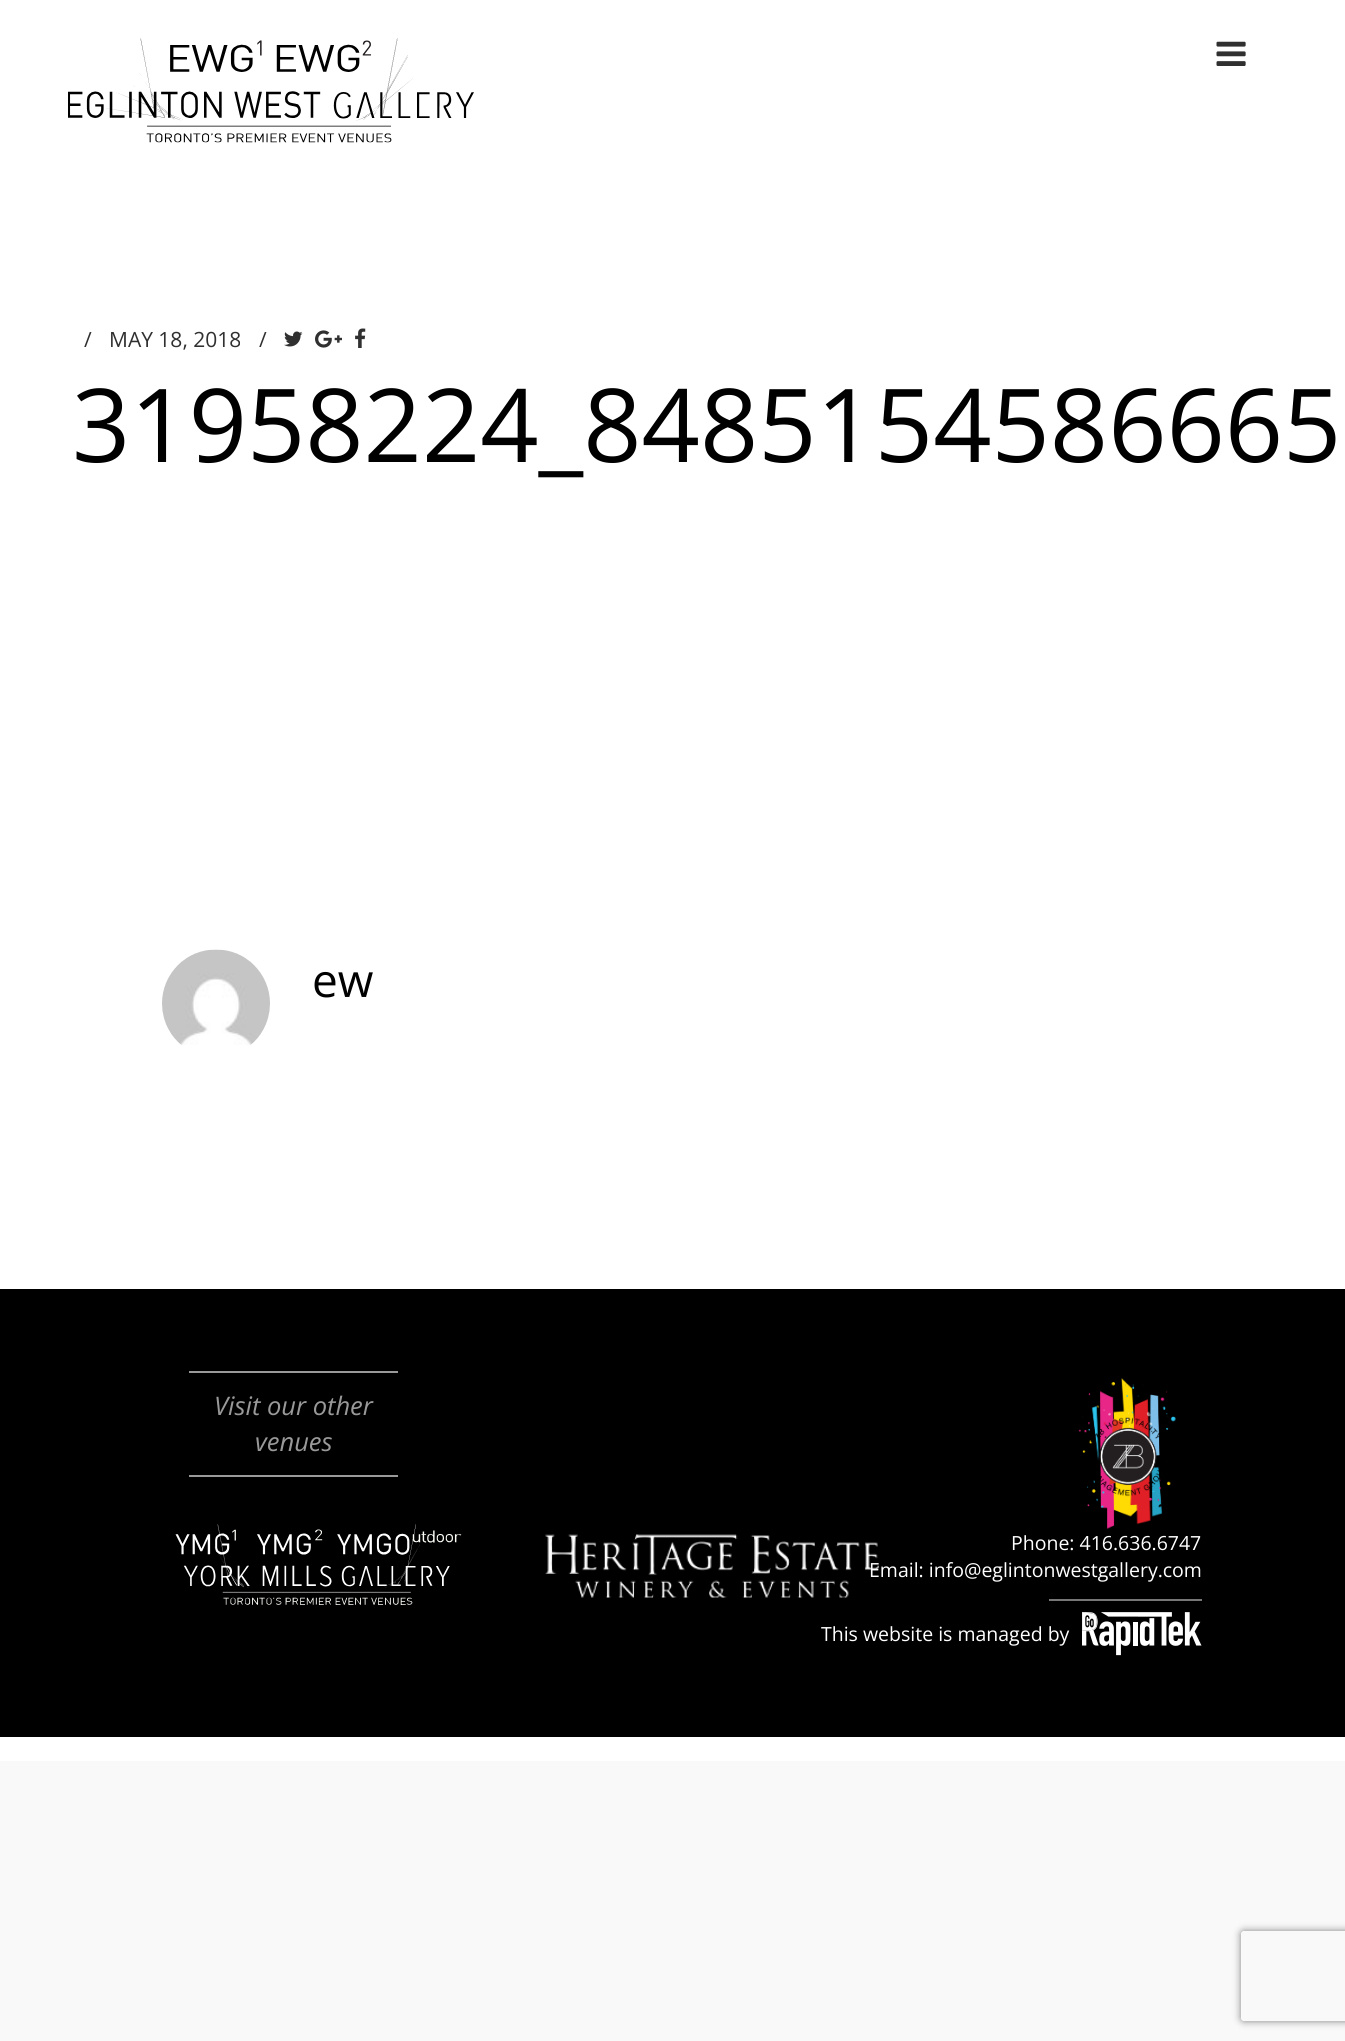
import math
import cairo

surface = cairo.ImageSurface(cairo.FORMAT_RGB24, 1345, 2041)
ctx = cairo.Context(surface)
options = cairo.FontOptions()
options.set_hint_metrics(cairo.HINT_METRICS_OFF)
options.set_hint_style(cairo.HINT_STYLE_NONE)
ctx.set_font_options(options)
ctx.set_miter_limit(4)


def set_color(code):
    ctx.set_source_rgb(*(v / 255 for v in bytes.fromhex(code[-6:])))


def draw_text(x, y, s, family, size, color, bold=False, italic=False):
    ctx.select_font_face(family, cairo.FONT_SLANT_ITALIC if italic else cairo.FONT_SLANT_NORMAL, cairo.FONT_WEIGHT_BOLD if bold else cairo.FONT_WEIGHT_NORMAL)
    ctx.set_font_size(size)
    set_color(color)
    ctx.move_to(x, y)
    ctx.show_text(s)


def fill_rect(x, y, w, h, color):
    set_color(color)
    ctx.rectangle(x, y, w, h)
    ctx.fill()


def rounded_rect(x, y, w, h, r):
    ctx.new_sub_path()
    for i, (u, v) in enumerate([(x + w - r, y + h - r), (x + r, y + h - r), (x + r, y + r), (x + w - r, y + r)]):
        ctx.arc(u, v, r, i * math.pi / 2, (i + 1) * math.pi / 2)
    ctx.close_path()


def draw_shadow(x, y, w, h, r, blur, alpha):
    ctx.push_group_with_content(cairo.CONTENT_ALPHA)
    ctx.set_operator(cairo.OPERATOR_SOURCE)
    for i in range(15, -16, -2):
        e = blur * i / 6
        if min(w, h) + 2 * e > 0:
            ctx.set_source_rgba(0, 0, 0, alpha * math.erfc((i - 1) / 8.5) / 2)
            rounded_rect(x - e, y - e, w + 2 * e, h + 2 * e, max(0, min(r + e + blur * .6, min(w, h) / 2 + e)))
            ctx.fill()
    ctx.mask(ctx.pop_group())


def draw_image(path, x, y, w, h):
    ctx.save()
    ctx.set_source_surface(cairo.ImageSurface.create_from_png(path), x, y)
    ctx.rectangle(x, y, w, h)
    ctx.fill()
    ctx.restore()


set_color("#f9f9f9")
ctx.paint()
fill_rect(0, 0, 1345, 1761, "#ffffff")
draw_image("assets/img1.png", 68, 38, 406, 105)
draw_image("assets/img2.png", 1216, 41, 30, 25)
draw_text(84, 347, "/", "Open Sans", 21, "#303030")
draw_text(109, 347, "MAY 18, 2018", "Open Sans", 21, "#303030")
draw_text(259, 347, "/", "Open Sans", 21, "#303030")
draw_image("assets/img3.png", 284, 331, 19, 16)
draw_image("assets/img4.png", 315, 330, 27, 18)
draw_image("assets/img5.png", 355, 328, 11, 20)
draw_text(72, 462, "31958224_8485154586665", "Open Sans", 102, "#000000")
draw_image("assets/img6.png", 162, 949, 108, 96)
draw_text(312, 997, "ew", "Open Sans", 46, "#000000")
fill_rect(0, 1289, 1345, 448, "#000000")
fill_rect(189, 1371, 209, 2, "#999999")
fill_rect(189, 1475, 209, 2, "#999999")
draw_text(214, 1415, "Visit our other", "Open Sans", 25.5, "#999999", italic=True)
draw_text(255, 1451, "venues", "Open Sans", 25.5, "#999999", italic=True)
draw_image("assets/img7.png", 175, 1524, 287, 81)
draw_image("assets/img8.png", 545, 1534, 334, 64)
draw_image("assets/img9.png", 1078, 1378, 98, 151)
draw_text(1011, 1550, "Phone: 416.636.6747", "Open Sans", 19.5, "#ffffff")
draw_text(869, 1577, "Email: info@eglintonwestgallery.com", "Open Sans", 19.5, "#ffffff")
fill_rect(1049, 1599, 153, 2, "#777777")
draw_text(821, 1641, "This website is managed by", "Open Sans", 19.5, "#ffffff")
draw_image("assets/img10.png", 1082, 1612, 120, 44)
ctx.save()
ctx.set_fill_rule(cairo.FILL_RULE_EVEN_ODD)
ctx.new_path()
ctx.move_to(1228, 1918)
ctx.line_to(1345, 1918)
ctx.line_to(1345, 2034)
ctx.line_to(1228, 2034)
ctx.close_path()
ctx.move_to(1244, 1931)
ctx.line_to(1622, 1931)
ctx.curve_to(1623.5, 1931, 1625, 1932.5, 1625, 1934)
ctx.line_to(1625, 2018)
ctx.curve_to(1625, 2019.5, 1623.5, 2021, 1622, 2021)
ctx.line_to(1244, 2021)
ctx.curve_to(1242.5, 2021, 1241, 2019.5, 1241, 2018)
ctx.line_to(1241, 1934)
ctx.curve_to(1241, 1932.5, 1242.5, 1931, 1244, 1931)
ctx.close_path()
ctx.clip()
set_color("#808080")
draw_shadow(1241, 1931, 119, 90, 3, 4, 1)
ctx.restore()
surface.write_to_png("output.png")
